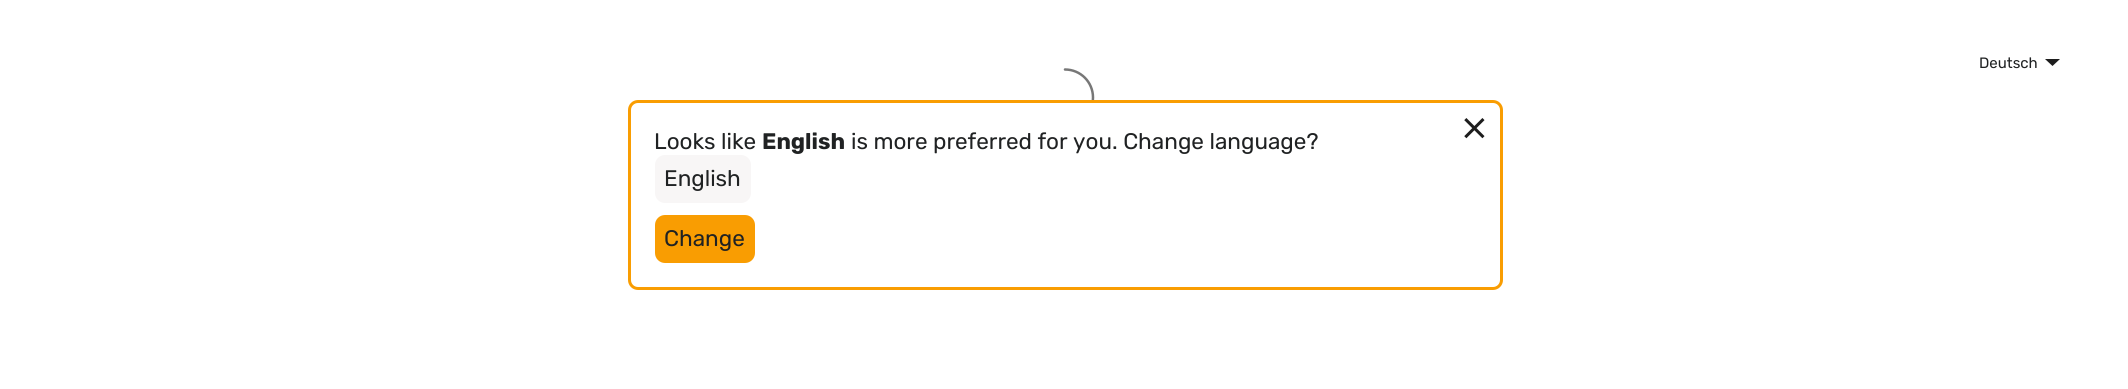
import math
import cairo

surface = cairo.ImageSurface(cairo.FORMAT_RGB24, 2128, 389)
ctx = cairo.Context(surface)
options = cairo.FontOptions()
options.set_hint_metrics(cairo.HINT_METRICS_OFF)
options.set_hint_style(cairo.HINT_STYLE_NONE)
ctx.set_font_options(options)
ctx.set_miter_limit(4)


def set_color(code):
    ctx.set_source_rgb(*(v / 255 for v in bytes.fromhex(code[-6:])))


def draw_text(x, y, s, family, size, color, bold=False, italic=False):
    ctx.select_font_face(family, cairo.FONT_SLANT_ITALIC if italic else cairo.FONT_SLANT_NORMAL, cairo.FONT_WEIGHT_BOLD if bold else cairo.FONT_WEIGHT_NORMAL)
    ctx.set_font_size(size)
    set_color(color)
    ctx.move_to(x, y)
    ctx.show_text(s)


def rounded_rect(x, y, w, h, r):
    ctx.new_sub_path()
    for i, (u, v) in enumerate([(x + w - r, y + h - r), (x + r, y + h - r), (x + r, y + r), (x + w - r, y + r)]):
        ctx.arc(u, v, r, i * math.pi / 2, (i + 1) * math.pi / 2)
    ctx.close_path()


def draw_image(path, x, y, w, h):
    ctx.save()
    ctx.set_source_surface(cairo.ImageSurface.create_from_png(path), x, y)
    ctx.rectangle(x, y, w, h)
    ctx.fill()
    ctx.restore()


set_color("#ffffff")
ctx.paint()
draw_text(1979, 68, "Deutsch", "Rubik", 15, "#202223")
set_color("#1d1d1d")
ctx.new_path()
ctx.move_to(2045, 59)
ctx.line_to(2060, 59)
ctx.line_to(2052.5, 66)
ctx.close_path()
ctx.fill()
ctx.new_path()
ctx.move_to(1065, 69.5)
ctx.curve_to(1080.5, 69.5, 1093, 82, 1093, 97.5)
ctx.curve_to(1093, 113, 1080.5, 125.5, 1065, 125.5)
ctx.curve_to(1052, 125.5, 1041, 117, 1038, 105)
set_color("#777777")
ctx.set_line_width(2.5)
ctx.set_line_cap(cairo.LINE_CAP_ROUND)
ctx.stroke()
set_color("#ffffff")
rounded_rect(629.5, 101.5, 872, 187, 8.5)
ctx.fill_preserve()
set_color("#f99d02")
ctx.set_line_width(3)
ctx.set_line_cap(cairo.LINE_CAP_BUTT)
ctx.stroke()
draw_image("assets/img1.png", 1464, 118, 21, 21)
draw_text(654, 149, "Looks like", "Rubik", 22.5, "#202223")
draw_text(762, 149, "English", "Rubik", 22.5, "#202223", bold=True)
draw_text(851, 149, "is more preferred for you. Change language?", "Rubik", 22.5, "#202223")
set_color("#f8f6f6")
rounded_rect(655, 155, 96, 48, 10)
ctx.fill()
draw_text(664, 186, "English", "Rubik", 22.5, "#202223")
set_color("#f99d02")
rounded_rect(655, 215, 100, 48, 10)
ctx.fill()
draw_text(664, 246, "Change", "Rubik", 22.5, "#202223")
surface.write_to_png("output.png")
